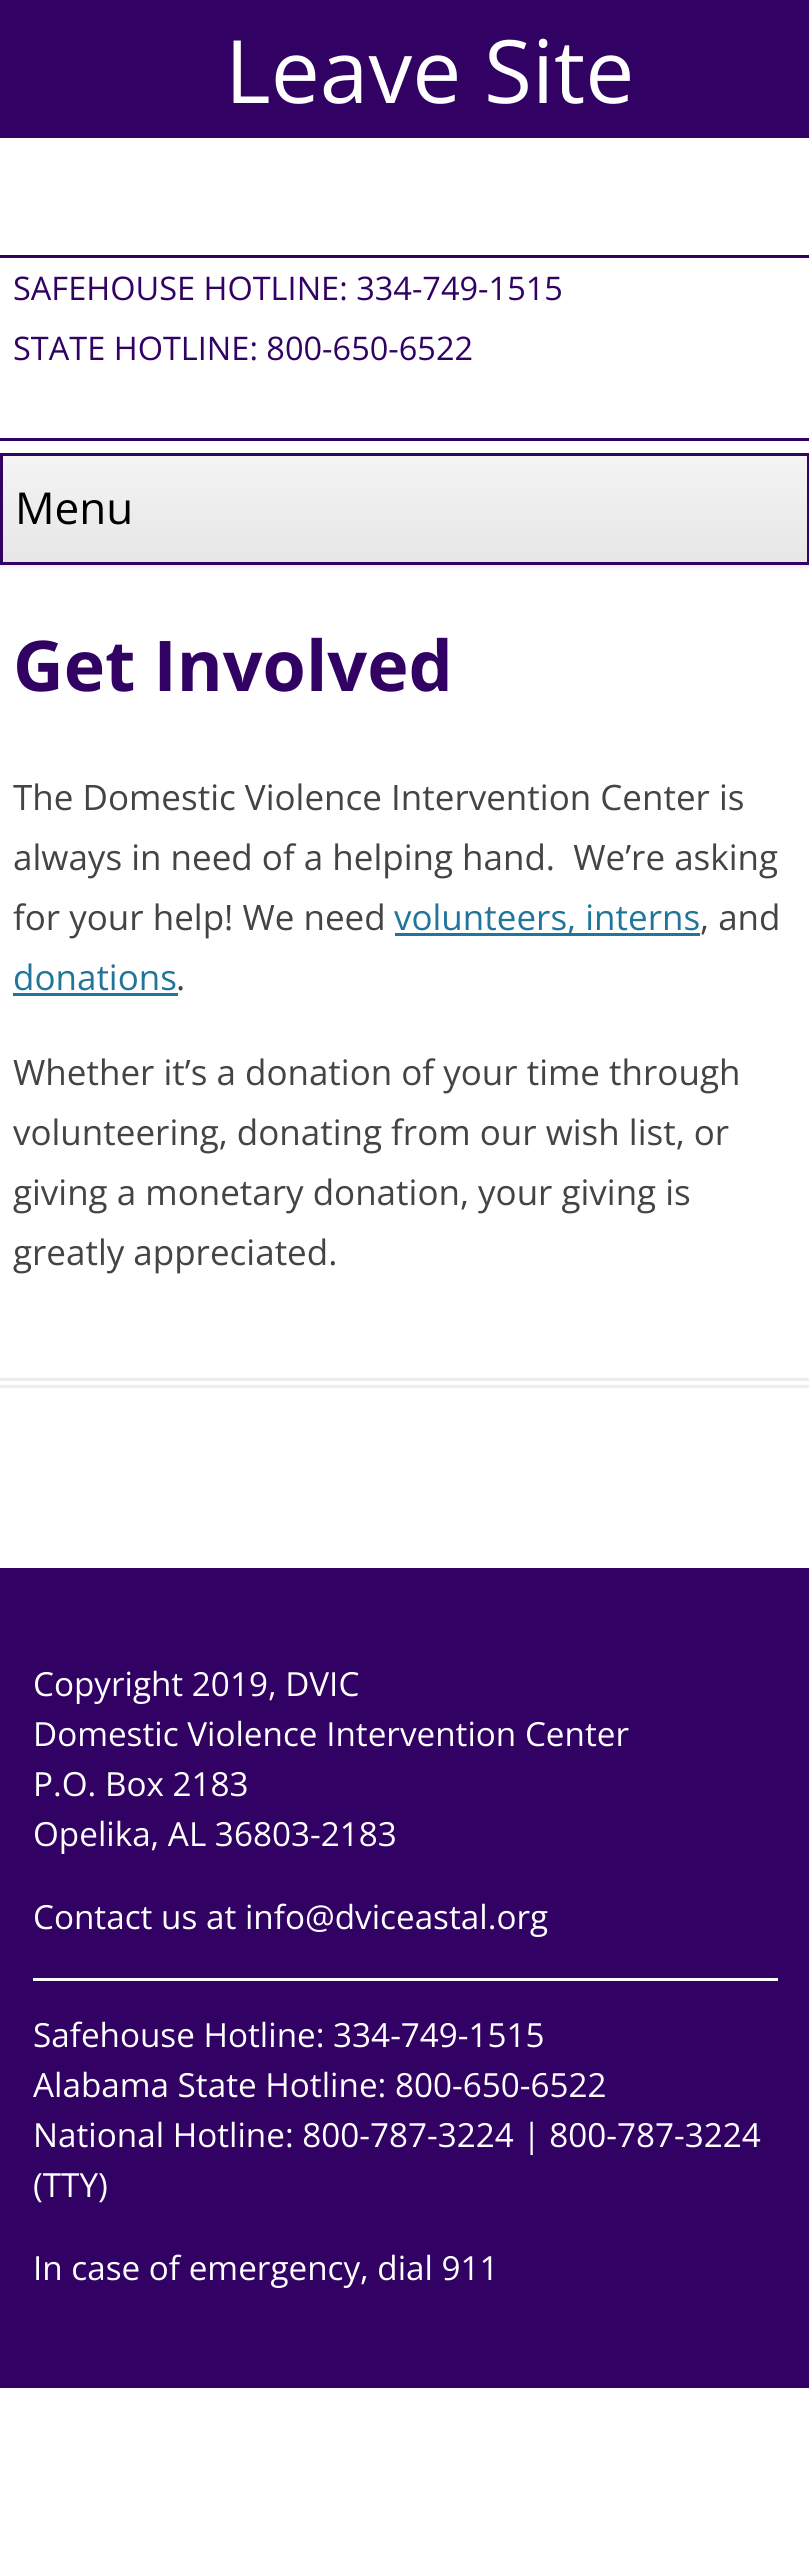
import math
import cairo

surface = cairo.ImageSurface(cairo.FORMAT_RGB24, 809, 2571)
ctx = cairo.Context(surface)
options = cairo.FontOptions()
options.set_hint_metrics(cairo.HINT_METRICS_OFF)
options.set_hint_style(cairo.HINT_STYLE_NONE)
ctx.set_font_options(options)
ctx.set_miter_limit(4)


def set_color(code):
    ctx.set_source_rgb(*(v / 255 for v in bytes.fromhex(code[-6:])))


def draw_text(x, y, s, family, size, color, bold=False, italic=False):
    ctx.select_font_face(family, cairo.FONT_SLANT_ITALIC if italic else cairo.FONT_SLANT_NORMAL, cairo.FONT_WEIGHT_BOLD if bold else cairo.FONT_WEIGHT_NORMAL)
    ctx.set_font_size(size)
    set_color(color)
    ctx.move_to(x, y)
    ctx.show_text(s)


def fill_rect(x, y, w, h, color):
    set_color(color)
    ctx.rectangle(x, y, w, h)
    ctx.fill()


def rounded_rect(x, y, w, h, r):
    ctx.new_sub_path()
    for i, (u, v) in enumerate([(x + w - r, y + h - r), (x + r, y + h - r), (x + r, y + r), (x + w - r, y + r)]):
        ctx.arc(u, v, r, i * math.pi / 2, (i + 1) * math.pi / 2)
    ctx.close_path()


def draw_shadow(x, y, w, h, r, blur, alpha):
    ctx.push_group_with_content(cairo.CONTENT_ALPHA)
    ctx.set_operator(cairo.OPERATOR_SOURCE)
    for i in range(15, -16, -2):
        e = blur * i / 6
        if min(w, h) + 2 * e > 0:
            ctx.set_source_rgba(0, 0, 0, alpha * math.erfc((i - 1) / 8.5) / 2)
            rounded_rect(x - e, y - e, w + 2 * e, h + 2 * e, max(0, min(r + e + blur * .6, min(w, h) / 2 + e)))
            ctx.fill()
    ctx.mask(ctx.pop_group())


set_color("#ffffff")
ctx.paint()
fill_rect(0, 0, 809, 138, "#310264")
draw_text(225, 103, "Leave Site", "Open Sans", 87.5, "#ffffff")
fill_rect(0, 255, 809, 3, "#310264")
fill_rect(0, 438, 809, 3, "#310264")
draw_text(13, 300, "SAFEHOUSE HOTLINE: 334-749-1515", "Open Sans", 32.5, "#310264")
draw_text(13, 360, "STATE HOTLINE: 800-650-6522", "Open Sans", 32.5, "#310264")
set_color("#404040")
draw_shadow(0, 455, 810, 113, 0, 2.5, 0.1)
gradient = cairo.LinearGradient(405, 455, 405, 563)
gradient.add_color_stop_rgba(0, 0.957, 0.957, 0.957, 1)
gradient.add_color_stop_rgba(1, 0.902, 0.902, 0.902, 1)
ctx.set_source(gradient)
ctx.rectangle(3, 456, 804, 106)
ctx.fill()
ctx.rectangle(1.5, 454.5, 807, 109)
set_color("#310264")
ctx.set_line_width(3)
ctx.stroke()
draw_text(15, 524, "Menu", "Open Sans", 44, "#000000")
fill_rect(0, 1378, 809, 3, "#ededed")
fill_rect(0, 1385, 809, 3, "#ededed")
draw_text(13, 691, "Get Involved", "Open Sans", 70, "#310264", bold=True)
draw_text(13, 810, "The Domestic Violence Intervention Center is", "Open Sans", 35, "#444444")
draw_text(13, 870, "always in need of a helping hand.  We’re asking", "Open Sans", 35, "#444444")
draw_text(13, 930, "for your help! We need", "Open Sans", 35, "#444444")
fill_rect(395, 933, 305, 3, "#21759b")
draw_text(394, 930, "volunteers, interns", "Open Sans", 35, "#21759b")
draw_text(700, 930, ", and", "Open Sans", 35, "#444444")
draw_text(13, 990, "donations", "Open Sans", 35, "#21759b")
fill_rect(13, 993, 165, 3, "#21759b")
draw_text(176, 990, ".", "Open Sans", 35, "#444444")
draw_text(13, 1085, "Whether it’s a donation of your time through", "Open Sans", 35, "#444444")
draw_text(13, 1145, "volunteering, donating from our wish list, or", "Open Sans", 35, "#444444")
draw_text(13, 1205, "giving a monetary donation, your giving is", "Open Sans", 35, "#444444")
draw_text(13, 1265, "greatly appreciated.", "Open Sans", 35, "#444444")
fill_rect(0, 1568, 809, 820, "#310264")
draw_text(33, 1696, "Copyright 2019, DVIC", "Open Sans", 33.25, "#ffffff")
draw_text(33, 1746, "Domestic Violence Intervention Center", "Open Sans", 33.25, "#ffffff")
draw_text(33, 1796, "P.O. Box 2183", "Open Sans", 33.25, "#ffffff")
draw_text(33, 1846, "Opelika, AL 36803-2183", "Open Sans", 33.25, "#ffffff")
draw_text(33, 1929, "Contact us at info@dviceastal.org", "Open Sans", 33.25, "#ffffff")
fill_rect(33, 1978, 745, 3, "#ffffff")
draw_text(33, 2047, "Safehouse Hotline: 334-749-1515", "Open Sans", 33.25, "#ffffff")
draw_text(33, 2097, "Alabama State Hotline: 800-650-6522", "Open Sans", 33.25, "#ffffff")
draw_text(33, 2147, "National Hotline: 800-787-3224 | 800-787-3224", "Open Sans", 33.25, "#ffffff")
draw_text(33, 2197, "(TTY)", "Open Sans", 33.25, "#ffffff")
draw_text(33, 2280, "In case of emergency, dial 911", "Open Sans", 33.25, "#ffffff")
surface.write_to_png("output.png")
